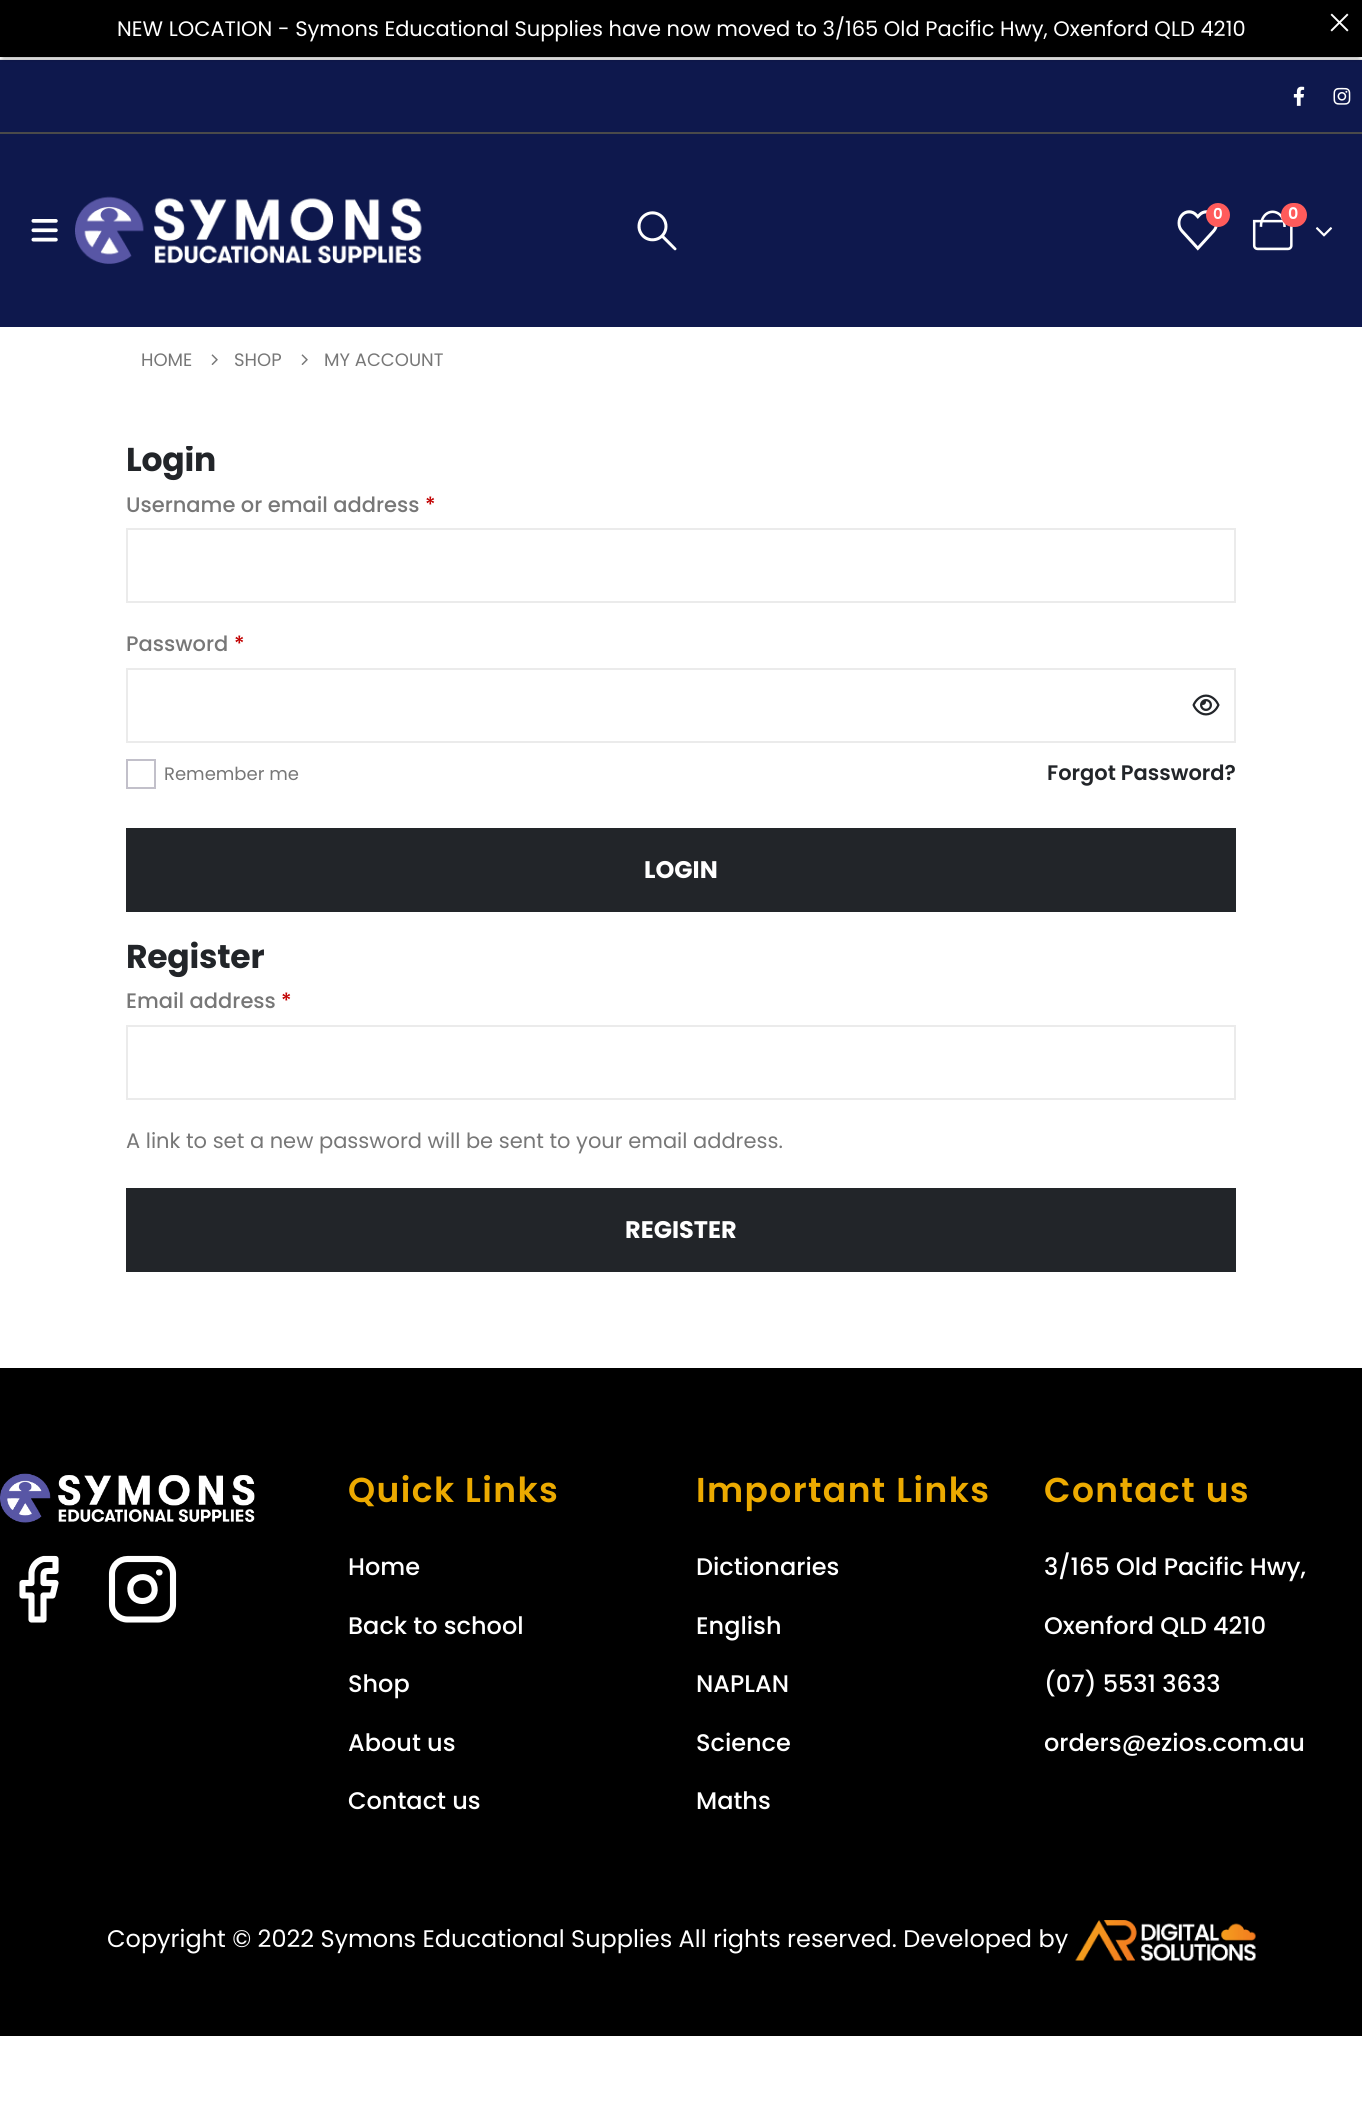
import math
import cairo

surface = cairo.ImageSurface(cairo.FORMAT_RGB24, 1362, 2103)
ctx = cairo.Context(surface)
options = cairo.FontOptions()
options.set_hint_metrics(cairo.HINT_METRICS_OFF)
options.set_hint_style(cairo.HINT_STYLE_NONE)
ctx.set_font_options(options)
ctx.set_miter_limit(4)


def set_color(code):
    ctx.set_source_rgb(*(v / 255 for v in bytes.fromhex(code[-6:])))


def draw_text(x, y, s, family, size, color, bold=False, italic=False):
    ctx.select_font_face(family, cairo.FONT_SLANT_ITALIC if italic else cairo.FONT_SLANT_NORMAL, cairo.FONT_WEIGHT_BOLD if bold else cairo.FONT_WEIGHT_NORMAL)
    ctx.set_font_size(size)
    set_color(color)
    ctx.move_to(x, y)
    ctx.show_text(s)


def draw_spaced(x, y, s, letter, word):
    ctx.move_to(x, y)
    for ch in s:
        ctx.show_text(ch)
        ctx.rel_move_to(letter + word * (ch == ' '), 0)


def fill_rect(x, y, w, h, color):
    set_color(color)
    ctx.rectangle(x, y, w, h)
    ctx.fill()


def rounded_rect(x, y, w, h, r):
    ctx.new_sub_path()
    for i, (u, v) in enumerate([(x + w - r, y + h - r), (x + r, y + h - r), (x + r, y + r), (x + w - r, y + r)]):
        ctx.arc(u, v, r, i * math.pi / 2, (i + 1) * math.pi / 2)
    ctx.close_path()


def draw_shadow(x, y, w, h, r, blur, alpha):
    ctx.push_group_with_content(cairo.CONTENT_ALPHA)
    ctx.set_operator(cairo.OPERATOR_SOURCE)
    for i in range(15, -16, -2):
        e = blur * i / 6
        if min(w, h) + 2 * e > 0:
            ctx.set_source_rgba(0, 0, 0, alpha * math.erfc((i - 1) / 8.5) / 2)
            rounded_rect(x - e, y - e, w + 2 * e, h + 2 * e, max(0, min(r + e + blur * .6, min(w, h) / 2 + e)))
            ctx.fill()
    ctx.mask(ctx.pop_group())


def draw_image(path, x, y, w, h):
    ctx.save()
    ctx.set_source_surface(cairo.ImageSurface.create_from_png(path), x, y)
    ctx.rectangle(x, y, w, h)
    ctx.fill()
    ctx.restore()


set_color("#ffffff")
ctx.paint()
fill_rect(0, 59, 1362, 1, "#e7e7e7")
fill_rect(0, 60, 1362, 72, "#0e184d")
set_color("#000000")
draw_shadow(3, 6, 1356, 51, 0, 3, 0.5)
fill_rect(0, 0, 1362, 57, "#000000")
draw_text(117, 36, "NEW LOCATION - Symons Educational Supplies have now moved to 3/165 Old Pacific Hwy, Oxenford QLD 4210", "Poppins", 21, "#ffffff")
draw_image("assets/img1.png", 1330, 13, 19, 19)
draw_image("assets/img2.png", 1293, 86, 12, 20)
draw_image("assets/img3.png", 1333, 87, 18, 18)
fill_rect(0, 134, 1362, 193, "#0e184d")
fill_rect(0, 132, 1362, 2, "#4a4a4a")
draw_image("assets/img4.png", 31, 219, 27, 23)
draw_image("assets/img5.png", 75, 196, 347, 68)
draw_image("assets/img6.png", 637, 211, 40, 40)
draw_image("assets/img7.png", 1177, 210, 41, 41)
set_color("#ff5b5b")
ctx.arc(1218, 215, 12, 0, 2 * math.pi)
ctx.fill()
draw_text(1213, 219, "0", "Poppins SemiBold", 15, "#ffffff")
draw_image("assets/img8.png", 1252, 210, 41, 41)
set_color("#ff5b5b")
rounded_rect(1281, 203, 26, 24, 12)
ctx.fill()
draw_text(1288, 219, "0", "Poppins SemiBold", 16, "#ffffff")
draw_image("assets/img9.png", 1315, 227, 18, 10)
draw_text(141, 366, "HOME", "Poppins", 18, "#777777")
draw_image("assets/img10.png", 211, 354, 7, 11)
draw_text(234, 366, "SHOP", "Poppins", 18, "#777777")
draw_image("assets/img10.png", 301, 354, 7, 11)
draw_text(324, 366, "MY ACCOUNT", "Poppins", 18, "#777777")
ctx.save()
ctx.rectangle(126, 446, 1110, 862)
ctx.clip()
ctx.select_font_face("Poppins", cairo.FONT_SLANT_NORMAL, cairo.FONT_WEIGHT_BOLD)
ctx.set_font_size(33)
set_color("#222529")
draw_spaced(126, 471, "Login", -0.25, 0)
ctx.restore()
draw_text(126, 512, "Username or email address", "Poppins Medium", 21, "#777777")
draw_text(425, 512, "*", "Poppins Medium", 21, "#c10000")
ctx.rectangle(127, 529, 1108, 73)
set_color("#ebebeb")
ctx.stroke()
draw_text(126, 651, "Password", "Poppins Medium", 21, "#777777")
draw_text(234, 651, "*", "Poppins Medium", 21, "#c10000")
ctx.rectangle(127, 669, 1108, 73)
set_color("#ebebeb")
ctx.stroke()
draw_image("assets/img11.png", 1192, 694, 28, 22)
ctx.rectangle(127, 760, 28, 28)
set_color("#c2c0ca")
ctx.stroke()
draw_text(164, 780, "Remember me", "Poppins", 18, "#777777")
draw_text(1047, 780, "Forgot Password?", "Poppins SemiBold", 21, "#222529")
fill_rect(126, 828, 1110, 84, "#222529")
draw_text(644, 878, "LOGIN", "Poppins", 24, "#ffffff", bold=True)
ctx.set_font_size(33)
set_color("#222529")
draw_spaced(126, 968, "Register", -0.25, 0)
draw_text(126, 1008, "Email address", "Poppins Medium", 21, "#777777")
draw_text(281, 1008, "*", "Poppins Medium", 21, "#c10000")
ctx.rectangle(127, 1026, 1108, 73)
set_color("#ebebeb")
ctx.stroke()
draw_text(126, 1148, "A link to set a new password will be sent to your email address.", "Poppins", 21, "#777777")
fill_rect(126, 1188, 1110, 84, "#222529")
draw_text(625, 1238, "REGISTER", "Poppins", 24, "#ffffff", bold=True)
fill_rect(0, 1368, 1362, 668, "#000000")
draw_image("assets/img12.png", 0, 1473, 255, 50)
ctx.new_path()
ctx.move_to(55.5, 1559)
ctx.line_to(43.5, 1559)
ctx.curve_to(37, 1560.5, 32, 1566, 31.5, 1572.5)
ctx.line_to(31.5, 1583)
ctx.line_to(22.5, 1583)
ctx.line_to(22.5, 1595.5)
ctx.line_to(31.5, 1595.5)
ctx.line_to(31.5, 1619.5)
ctx.line_to(43.5, 1619.5)
ctx.line_to(43.5, 1595.5)
ctx.line_to(52.5, 1595.5)
ctx.line_to(55.5, 1583)
ctx.line_to(43.5, 1583)
ctx.curve_to(43.5, 1569.5, 42, 1571, 55.5, 1571)
ctx.close_path()
set_color("#ffffff")
ctx.set_line_width(6.1)
ctx.set_line_cap(cairo.LINE_CAP_ROUND)
ctx.set_line_join(cairo.LINE_JOIN_ROUND)
ctx.stroke()
ctx.new_path()
ctx.move_to(157.5, 1559)
ctx.line_to(127.5, 1559)
ctx.curve_to(119, 1559, 112, 1565.5, 112, 1574)
ctx.line_to(112, 1604.5)
ctx.curve_to(112, 1613, 119, 1619.5, 127.5, 1619.5)
ctx.line_to(157.5, 1619.5)
ctx.curve_to(166, 1619.5, 173, 1613, 173, 1604.5)
ctx.line_to(173, 1574)
ctx.curve_to(173, 1565.5, 166, 1559, 157.5, 1559)
ctx.close_path()
ctx.stroke()
ctx.new_path()
ctx.move_to(154.5, 1587.5)
ctx.curve_to(157, 1603, 133, 1606.5, 130.5, 1591)
ctx.curve_to(128, 1575, 152.5, 1571.5, 154.5, 1587.5)
ctx.close_path()
ctx.move_to(159, 1572.5)
ctx.line_to(159.5, 1572.5)
ctx.stroke()
ctx.select_font_face("Poppins SemiBold")
ctx.set_font_size(34.5)
set_color("#ecaa00")
draw_spaced(348, 1502, "Quick Links", 1.4, 0)
draw_text(348, 1575, "Home", "Poppins Medium", 24, "#ffffff")
draw_text(348, 1634, "Back to school", "Poppins Medium", 24, "#ffffff")
draw_text(348, 1692, "Shop", "Poppins Medium", 24, "#ffffff")
draw_text(348, 1751, "About us", "Poppins Medium", 24, "#ffffff")
draw_text(348, 1809, "Contact us", "Poppins Medium", 24, "#ffffff")
ctx.select_font_face("Poppins SemiBold")
ctx.set_font_size(34.5)
set_color("#ecaa00")
draw_spaced(696, 1502, "Important Links", 1.4, 0)
draw_text(696, 1575, "Dictionaries", "Poppins Medium", 24, "#ffffff")
draw_text(696, 1634, "English", "Poppins Medium", 24, "#ffffff")
draw_text(696, 1692, "NAPLAN", "Poppins Medium", 24, "#ffffff")
draw_text(696, 1751, "Science", "Poppins Medium", 24, "#ffffff")
draw_text(696, 1809, "Maths", "Poppins Medium", 24, "#ffffff")
ctx.select_font_face("Poppins SemiBold")
ctx.set_font_size(34.5)
set_color("#ecaa00")
draw_spaced(1044, 1502, "Contact us", 1.4, 0)
draw_text(1044, 1575, "3/165 Old Pacific Hwy,", "Poppins Medium", 24, "#ffffff")
draw_text(1044, 1634, "Oxenford QLD 4210", "Poppins Medium", 24, "#ffffff")
draw_text(1044, 1692, "(07) 5531 3633", "Poppins Medium", 24, "#ffffff")
draw_text(1044, 1751, "orders@ezios.com.au", "Poppins Medium", 24, "#ffffff")
draw_text(107, 1947, "Copyright © 2022 Symons Educational Supplies All rights reserved. Developed by", "Poppins", 24, "#ffffff")
draw_image("assets/img13.png", 1075, 1920, 181, 41)
surface.write_to_png("output.png")
